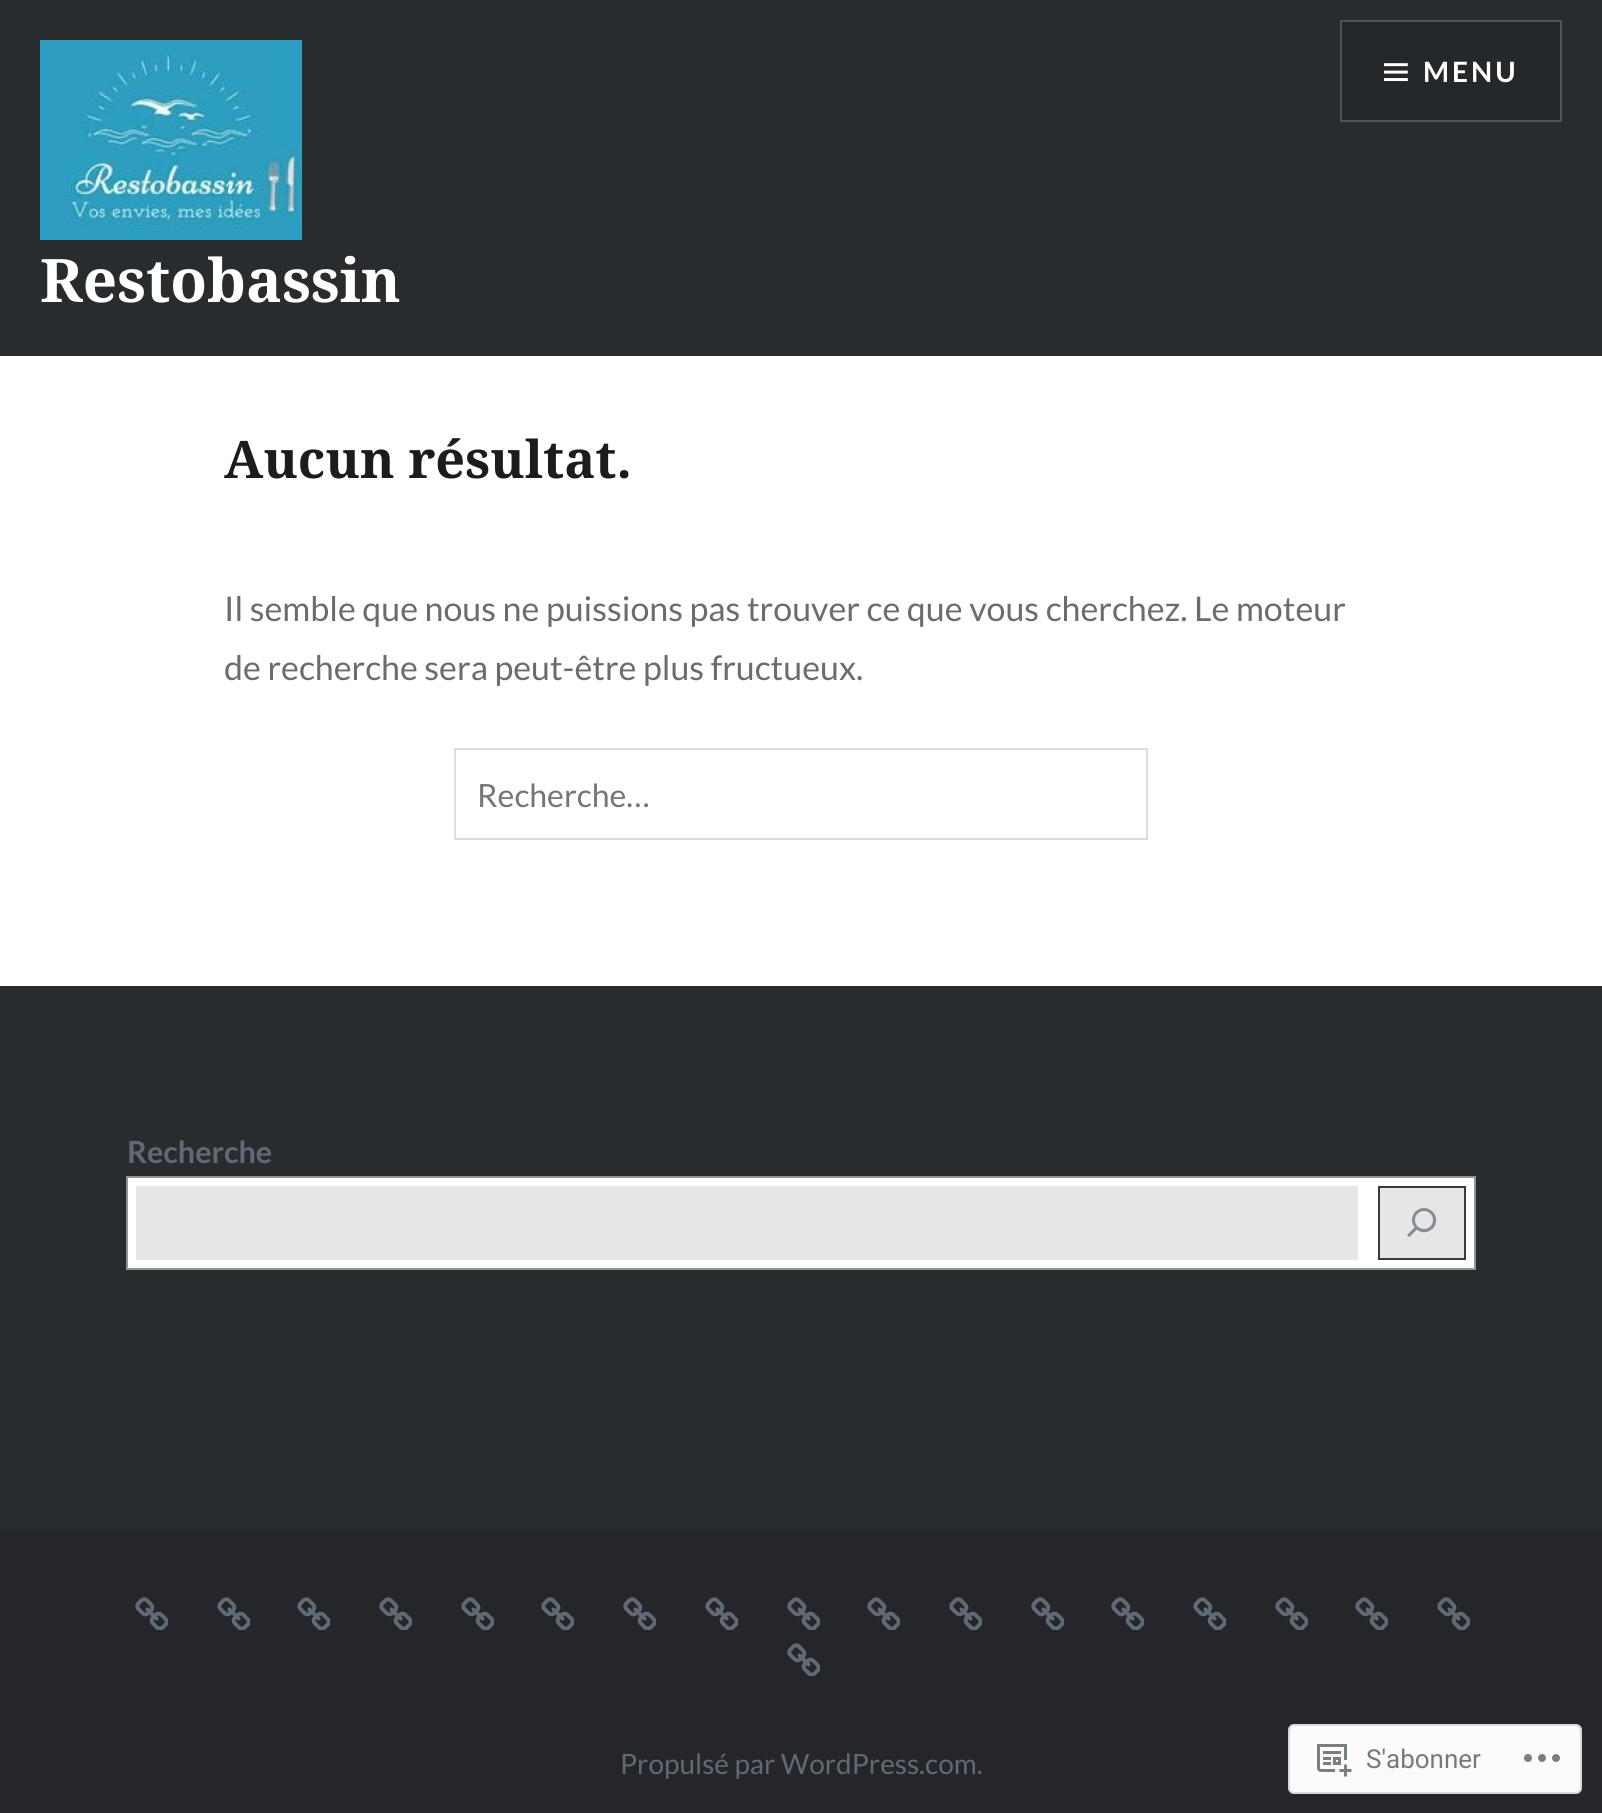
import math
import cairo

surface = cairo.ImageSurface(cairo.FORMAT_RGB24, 1602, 1813)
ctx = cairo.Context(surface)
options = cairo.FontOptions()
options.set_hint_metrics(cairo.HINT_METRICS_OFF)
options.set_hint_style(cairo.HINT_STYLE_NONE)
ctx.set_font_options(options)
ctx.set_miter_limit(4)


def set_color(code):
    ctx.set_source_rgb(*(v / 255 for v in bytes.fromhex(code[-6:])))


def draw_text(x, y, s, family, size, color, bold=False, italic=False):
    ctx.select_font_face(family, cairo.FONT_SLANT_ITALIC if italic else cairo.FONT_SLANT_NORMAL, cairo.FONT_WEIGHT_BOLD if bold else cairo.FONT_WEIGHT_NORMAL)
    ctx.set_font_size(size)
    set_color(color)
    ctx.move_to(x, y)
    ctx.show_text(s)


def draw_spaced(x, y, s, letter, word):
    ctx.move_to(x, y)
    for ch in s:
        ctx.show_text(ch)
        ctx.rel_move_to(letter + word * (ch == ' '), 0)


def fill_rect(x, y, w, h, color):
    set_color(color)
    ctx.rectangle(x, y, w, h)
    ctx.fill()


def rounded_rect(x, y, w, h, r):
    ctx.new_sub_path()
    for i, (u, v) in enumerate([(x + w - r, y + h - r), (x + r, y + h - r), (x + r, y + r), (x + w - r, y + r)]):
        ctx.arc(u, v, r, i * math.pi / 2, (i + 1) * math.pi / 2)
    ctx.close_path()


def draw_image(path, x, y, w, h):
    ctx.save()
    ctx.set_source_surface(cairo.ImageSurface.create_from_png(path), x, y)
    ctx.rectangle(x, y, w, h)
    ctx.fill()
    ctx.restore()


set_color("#ffffff")
ctx.paint()
fill_rect(0, 0, 1602, 356, "#292c2f")
set_color("#25282a")
ctx.rectangle(1341, 21, 220, 100)
ctx.fill_preserve()
set_color("#515355")
ctx.stroke()
draw_image("assets/img1.png", 1384, 63, 24, 19)
ctx.select_font_face("Lato", cairo.FONT_SLANT_NORMAL, cairo.FONT_WEIGHT_BOLD)
ctx.set_font_size(28)
set_color("#ffffff")
draw_spaced(1423, 82, "MENU", 3, 0)
draw_image("assets/img2.png", 40, 40, 262, 200)
draw_text(40, 302, "Restobassin", "Noto Serif", 60, "#ffffff", bold=True)
draw_text(224, 478, "Aucun résultat.", "Noto Serif", 52, "#1a1c1e", bold=True)
draw_text(224, 621, "Il semble que nous ne puissions pas trouver ce que vous cherchez. Le moteur", "Lato", 34, "#6a6c6e")
draw_text(224, 680, "de recherche sera peut-être plus fructueux.", "Lato", 34, "#6a6c6e")
ctx.rectangle(455, 749, 692, 90)
set_color("#dddddd")
ctx.stroke()
draw_text(477, 807, "Recherche…", "Lato", 32, "#757575")
fill_rect(0, 986, 1602, 544, "#292c2f")
draw_text(127, 1163, "Recherche", "Lato", 30.5, "#616a74", bold=True)
set_color("#ffffff")
ctx.rectangle(127, 1177, 1348, 92)
ctx.fill_preserve()
set_color("#949494")
ctx.stroke()
fill_rect(136, 1186, 1222, 74, "#e6e6e6")
ctx.rectangle(1379, 1187, 86, 72)
ctx.fill_preserve()
set_color("#363b40")
ctx.stroke()
draw_image("assets/img3.png", 1407, 1208, 30, 29)
fill_rect(0, 1530, 1602, 283, "#242629")
draw_image("assets/img4.png", 135, 1597, 33, 33)
draw_image("assets/img4.png", 217, 1597, 33, 33)
draw_image("assets/img4.png", 297, 1597, 33, 33)
draw_image("assets/img4.png", 379, 1597, 33, 33)
draw_image("assets/img4.png", 461, 1597, 33, 33)
draw_image("assets/img4.png", 541, 1597, 33, 33)
draw_image("assets/img4.png", 623, 1597, 33, 33)
draw_image("assets/img4.png", 705, 1597, 33, 33)
draw_image("assets/img4.png", 787, 1597, 33, 33)
draw_image("assets/img4.png", 867, 1597, 33, 33)
draw_image("assets/img4.png", 949, 1597, 33, 33)
draw_image("assets/img4.png", 1031, 1597, 33, 33)
draw_image("assets/img4.png", 1111, 1597, 33, 33)
draw_image("assets/img4.png", 1193, 1597, 33, 33)
draw_image("assets/img4.png", 1275, 1597, 33, 33)
draw_image("assets/img4.png", 1355, 1597, 33, 33)
draw_image("assets/img4.png", 1437, 1597, 33, 33)
draw_image("assets/img4.png", 787, 1643, 33, 33)
draw_text(620, 1774, "Propulsé par WordPress.com.", "Lato", 28, "#616a74")
set_color("#fbfbfb")
rounded_rect(1289, 1725, 292, 68, 5)
ctx.fill_preserve()
set_color("#d8d8da")
ctx.stroke()
draw_image("assets/img5.png", 1317, 1744, 35, 33)
draw_text(1366, 1768, "S'abonner", "Roboto", 26, "#767a80")
draw_image("assets/img6.png", 1524, 1754, 36, 8)
surface.write_to_png("output.png")
